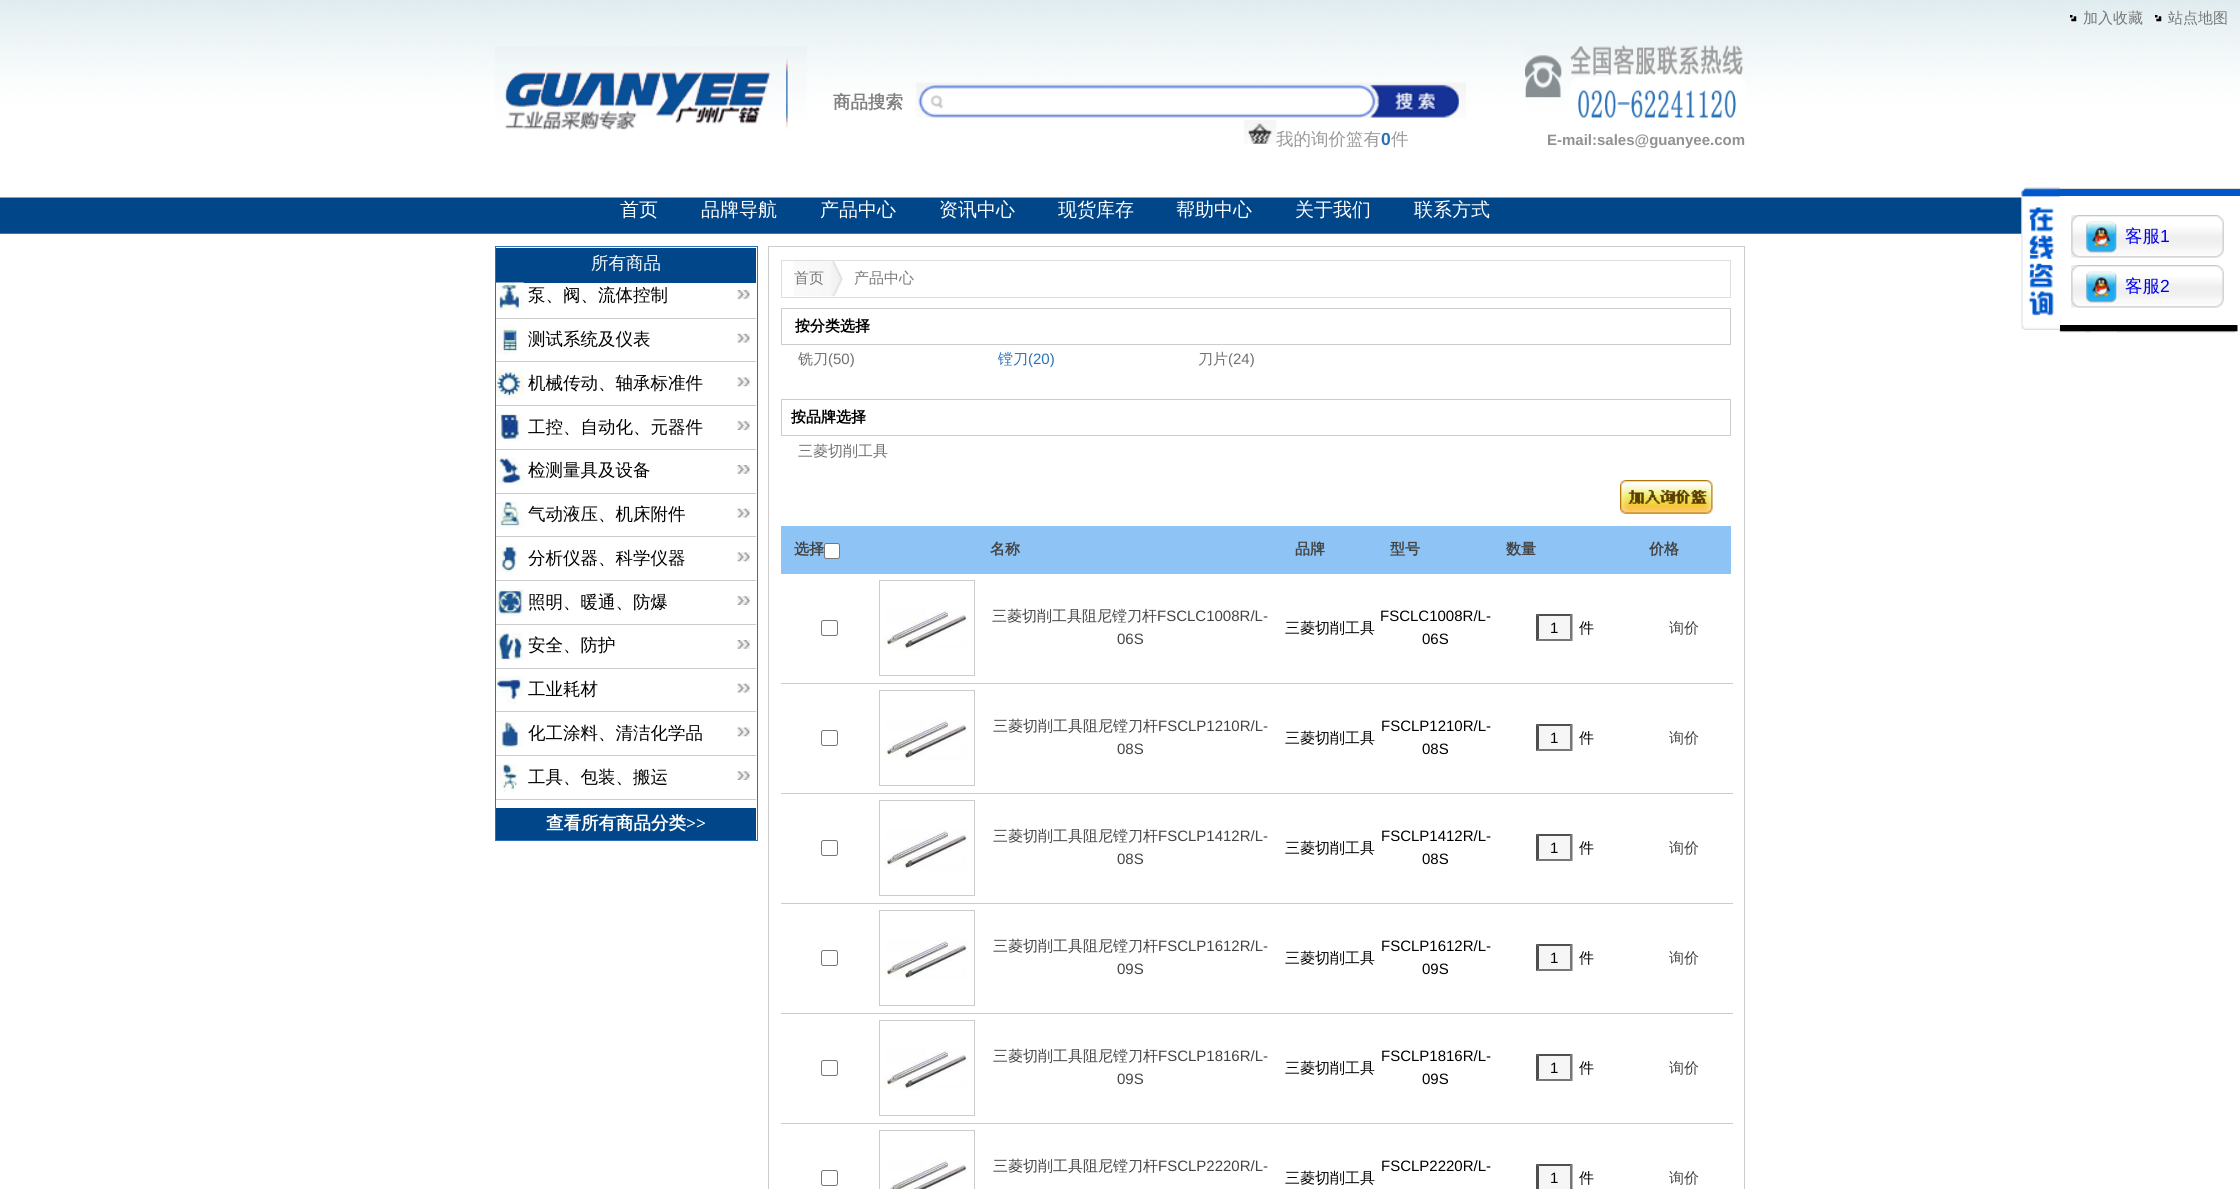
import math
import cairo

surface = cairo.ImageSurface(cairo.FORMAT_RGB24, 2240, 1189)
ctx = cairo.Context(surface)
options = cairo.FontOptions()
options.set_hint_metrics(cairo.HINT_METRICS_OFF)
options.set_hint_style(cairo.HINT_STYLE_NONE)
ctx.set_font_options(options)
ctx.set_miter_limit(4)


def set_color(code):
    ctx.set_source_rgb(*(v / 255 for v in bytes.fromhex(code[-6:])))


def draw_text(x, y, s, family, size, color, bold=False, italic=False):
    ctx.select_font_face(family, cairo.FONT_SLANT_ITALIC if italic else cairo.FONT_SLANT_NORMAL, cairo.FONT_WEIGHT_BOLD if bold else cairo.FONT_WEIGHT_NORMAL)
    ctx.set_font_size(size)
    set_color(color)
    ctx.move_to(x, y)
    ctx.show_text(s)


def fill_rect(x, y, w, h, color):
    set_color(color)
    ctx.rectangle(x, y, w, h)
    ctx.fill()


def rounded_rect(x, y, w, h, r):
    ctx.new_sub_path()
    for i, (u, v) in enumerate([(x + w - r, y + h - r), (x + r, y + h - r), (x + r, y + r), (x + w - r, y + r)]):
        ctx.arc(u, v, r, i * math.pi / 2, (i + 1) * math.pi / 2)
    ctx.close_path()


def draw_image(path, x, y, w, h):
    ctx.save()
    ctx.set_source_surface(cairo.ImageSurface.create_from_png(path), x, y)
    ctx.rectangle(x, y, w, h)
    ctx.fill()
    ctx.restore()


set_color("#ffffff")
ctx.paint()
draw_image("assets/img1.png", 0, 0, 2240, 234)
draw_image("assets/img2.png", 2070, 15, 7, 7)
draw_text(2083, 23, "加入收藏", "WenQuanYi Zen Hei Medium", 15, "#777777")
draw_image("assets/img3.png", 2155, 15, 7, 7)
draw_text(2168, 23, "站点地图", "WenQuanYi Zen Hei Medium", 15, "#777777")
draw_image("assets/img4.png", 495, 46, 312, 85)
draw_text(833, 108, "商品搜索", "WenQuanYi Zen Hei", 17.5, "#818181", bold=True)
draw_image("assets/img5.png", 916, 82, 550, 36)
draw_text(1276, 145, "我的询价篮有", "WenQuanYi Zen Hei Medium", 17.5, "#999999")
draw_image("assets/img6.png", 1244, 120, 33, 24)
draw_text(1381, 145, "0", "Liberation Sans", 17.5, "#2971b8", bold=True)
draw_text(1391, 145, "件", "WenQuanYi Zen Hei Medium", 17.5, "#999999")
draw_image("assets/img7.png", 1525, 45, 220, 73)
draw_text(1547, 145, "E-mail:sales@guanyee.com", "Liberation Sans", 15, "#939090", bold=True)
draw_text(620, 216, "首页", "WenQuanYi Zen Hei Medium", 19, "#ffffff")
draw_text(701, 216, "品牌导航", "WenQuanYi Zen Hei Medium", 19, "#ffffff")
draw_text(820, 216, "产品中心", "WenQuanYi Zen Hei Medium", 19, "#ffffff")
draw_text(939, 216, "资讯中心", "WenQuanYi Zen Hei Medium", 19, "#ffffff")
draw_text(1058, 216, "现货库存", "WenQuanYi Zen Hei Medium", 19, "#ffffff")
draw_text(1176, 216, "帮助中心", "WenQuanYi Zen Hei Medium", 19, "#ffffff")
draw_text(1295, 216, "关于我们", "WenQuanYi Zen Hei Medium", 19, "#ffffff")
draw_text(1414, 216, "联系方式", "WenQuanYi Zen Hei Medium", 19, "#ffffff")
ctx.rectangle(495.5, 246.5, 262, 594)
set_color("#2971b8")
ctx.set_line_width(1)
ctx.stroke()
fill_rect(496, 248, 260, 35, "#02468a")
draw_text(591, 269, "所有商品", "WenQuanYi Zen Hei Medium", 17.5, "#ffffff")
fill_rect(496, 318, 260, 1, "#cccccc")
draw_image("assets/img8.png", 496, 282, 28, 28)
draw_text(528, 301, "泵、阀、流体控制", "WenQuanYi Zen Hei Medium", 17.5, "#000000")
draw_image("assets/img9.png", 737, 290, 13, 9)
fill_rect(496, 361, 260, 1, "#cccccc")
draw_image("assets/img10.png", 496, 326, 21, 28)
draw_text(528, 345, "测试系统及仪表", "WenQuanYi Zen Hei Medium", 17.5, "#000000")
draw_image("assets/img11.png", 737, 333, 13, 10)
fill_rect(496, 405, 260, 1, "#cccccc")
draw_image("assets/img12.png", 496, 370, 28, 28)
draw_text(528, 389, "机械传动、轴承标准件", "WenQuanYi Zen Hei Medium", 17.5, "#000000")
draw_image("assets/img13.png", 737, 377, 13, 10)
fill_rect(496, 449, 260, 1, "#cccccc")
draw_image("assets/img14.png", 496, 413, 28, 28)
draw_text(528, 433, "工控、自动化、元器件", "WenQuanYi Zen Hei Medium", 17.5, "#000000")
draw_image("assets/img15.png", 737, 421, 13, 9)
fill_rect(496, 493, 260, 1, "#cccccc")
draw_image("assets/img16.png", 496, 457, 28, 28)
draw_text(528, 476, "检测量具及设备", "WenQuanYi Zen Hei Medium", 17.5, "#000000")
draw_image("assets/img17.png", 737, 465, 13, 9)
fill_rect(496, 536, 260, 1, "#cccccc")
draw_image("assets/img18.png", 496, 501, 28, 28)
draw_text(528, 520, "气动液压、机床附件", "WenQuanYi Zen Hei Medium", 17.5, "#000000")
draw_image("assets/img11.png", 737, 508, 13, 10)
fill_rect(496, 580, 260, 1, "#cccccc")
draw_image("assets/img19.png", 496, 545, 21, 28)
draw_text(528, 564, "分析仪器、科学仪器", "WenQuanYi Zen Hei Medium", 17.5, "#000000")
draw_image("assets/img13.png", 737, 552, 13, 10)
fill_rect(496, 624, 260, 1, "#cccccc")
draw_image("assets/img20.png", 496, 588, 28, 29)
draw_text(528, 608, "照明、暖通、防爆", "WenQuanYi Zen Hei Medium", 17.5, "#000000")
draw_image("assets/img15.png", 737, 596, 13, 9)
fill_rect(496, 668, 260, 1, "#cccccc")
draw_image("assets/img21.png", 496, 632, 28, 28)
draw_text(528, 651, "安全、防护", "WenQuanYi Zen Hei Medium", 17.5, "#000000")
draw_image("assets/img17.png", 737, 640, 13, 9)
fill_rect(496, 711, 260, 1, "#cccccc")
draw_image("assets/img22.png", 496, 676, 28, 28)
draw_text(528, 695, "工业耗材", "WenQuanYi Zen Hei Medium", 17.5, "#000000")
draw_image("assets/img11.png", 737, 683, 13, 10)
fill_rect(496, 755, 260, 1, "#cccccc")
draw_image("assets/img23.png", 496, 720, 28, 28)
draw_text(528, 739, "化工涂料、清洁化学品", "WenQuanYi Zen Hei Medium", 17.5, "#000000")
draw_image("assets/img13.png", 737, 727, 13, 10)
fill_rect(496, 799, 260, 1, "#cccccc")
draw_image("assets/img24.png", 496, 763, 21, 29)
draw_text(528, 783, "工具、包装、搬运", "WenQuanYi Zen Hei Medium", 17.5, "#000000")
draw_image("assets/img15.png", 737, 771, 13, 9)
fill_rect(496, 808, 260, 32, "#02468a")
draw_text(546, 829, "查看所有商品分类", "WenQuanYi Zen Hei", 17.5, "#ffffff", bold=True)
draw_text(686, 829, ">>", "Liberation Serif", 17.5, "#ffffff", bold=True)
ctx.rectangle(768.5, 246.5, 976, 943)
set_color("#cccccc")
ctx.stroke()
ctx.rectangle(781.5, 260.5, 949, 37)
set_color("#dedede")
ctx.stroke()
draw_image("assets/img25.png", 794, 261, 49, 36)
draw_text(794, 283, "首页", "WenQuanYi Zen Hei Medium", 15, "#777777")
draw_text(854, 283, "产品中心", "WenQuanYi Zen Hei Medium", 15, "#777777")
fill_rect(781, 308, 950, 1, "#cccccc")
fill_rect(1730, 308, 1, 37, "#cccccc")
fill_rect(781, 344, 950, 1, "#cccccc")
fill_rect(781, 308, 1, 37, "#cccccc")
draw_text(795, 331, "按分类选择", "WenQuanYi Zen Hei", 15, "#000000", bold=True)
draw_text(798, 364, "铣刀", "WenQuanYi Zen Hei Medium", 15, "#707070")
draw_text(828, 364, "(50)", "Liberation Sans", 15, "#707070")
draw_text(998, 364, "镗刀", "WenQuanYi Zen Hei Medium", 15, "#2971b8")
draw_text(1028, 364, "(20)", "Liberation Sans", 15, "#2971b8")
draw_text(1198, 364, "刀片", "WenQuanYi Zen Hei Medium", 15, "#707070")
draw_text(1228, 364, "(24)", "Liberation Sans", 15, "#707070")
fill_rect(781, 399, 950, 1, "#cccccc")
fill_rect(1730, 399, 1, 37, "#cccccc")
fill_rect(781, 435, 950, 1, "#cccccc")
fill_rect(781, 399, 1, 37, "#cccccc")
draw_text(791, 422, "按品牌选择", "WenQuanYi Zen Hei", 15, "#000000", bold=True)
draw_text(798, 456, "三菱切削工具", "WenQuanYi Zen Hei Medium", 15, "#707070")
draw_image("assets/img26.png", 1620, 480, 93, 34)
fill_rect(781, 526, 950, 48, "#8ec4f5")
draw_text(794, 554, "选择", "WenQuanYi Zen Hei", 15, "#444444", bold=True)
set_color("#ffffff")
rounded_rect(824.5, 543.5, 15, 15, 2)
ctx.fill_preserve()
set_color("#767676")
ctx.stroke()
draw_text(990, 554, "名称", "WenQuanYi Zen Hei", 15, "#444444", bold=True)
draw_text(1295, 554, "品牌", "WenQuanYi Zen Hei", 15, "#444444", bold=True)
draw_text(1390, 554, "型号", "WenQuanYi Zen Hei", 15, "#444444", bold=True)
draw_text(1506, 554, "数量", "WenQuanYi Zen Hei", 15, "#444444", bold=True)
draw_text(1649, 554, "价格", "WenQuanYi Zen Hei", 15, "#444444", bold=True)
rounded_rect(821.5, 620.5, 16, 15, 2)
set_color("#767676")
ctx.stroke()
ctx.rectangle(879.5, 580.5, 95, 95)
set_color("#cccccc")
ctx.stroke()
draw_image("assets/img27.png", 884, 609, 83, 41)
draw_text(992, 621, "三菱切削工具阻尼镗刀杆", "WenQuanYi Zen Hei Medium", 15, "#444444")
draw_text(1157, 621, "FSCLC1008R/L-", "Liberation Sans", 15, "#444444")
draw_text(1117, 644, "06S", "Liberation Sans", 15, "#444444")
draw_text(1285, 633, "三菱切削工具", "WenQuanYi Zen Hei Medium", 15, "#000000")
draw_text(1380, 621, "FSCLC1008R/L-", "Liberation Sans", 15, "#000000")
draw_text(1422, 644, "06S", "Liberation Sans", 15, "#000000")
fill_rect(1536, 614, 37, 27, "#f6f6f6")
set_color("#4f4f4f")
ctx.new_path()
ctx.move_to(1536, 614)
ctx.line_to(1572.5, 614)
ctx.line_to(1570, 616)
ctx.line_to(1539, 616)
ctx.close_path()
ctx.fill()
set_color("#767676")
ctx.new_path()
ctx.move_to(1572.5, 614)
ctx.line_to(1572.5, 641)
ctx.line_to(1570, 639)
ctx.line_to(1570, 616)
ctx.close_path()
ctx.fill()
ctx.new_path()
ctx.move_to(1572.5, 641)
ctx.line_to(1536, 641)
ctx.line_to(1539, 639)
ctx.line_to(1570, 639)
ctx.close_path()
ctx.fill()
set_color("#4f4f4f")
ctx.new_path()
ctx.move_to(1536, 641)
ctx.line_to(1536, 614)
ctx.line_to(1539, 616)
ctx.line_to(1539, 639)
ctx.close_path()
ctx.fill()
draw_text(1550, 633, "1", "Liberation Sans", 15, "#000000")
draw_text(1579, 633, "件", "WenQuanYi Zen Hei Medium", 15, "#000000")
fill_rect(781, 683, 952, 1, "#cccccc")
draw_text(1669, 633, "询价", "WenQuanYi Zen Hei Medium", 15, "#444444")
rounded_rect(821.5, 730.5, 16, 15, 2)
set_color("#767676")
ctx.stroke()
ctx.rectangle(879.5, 690.5, 95, 95)
set_color("#cccccc")
ctx.stroke()
draw_image("assets/img27.png", 884, 719, 83, 41)
draw_text(993, 731, "三菱切削工具阻尼镗刀杆", "WenQuanYi Zen Hei Medium", 15, "#444444")
draw_text(1158, 731, "FSCLP1210R/L-", "Liberation Sans", 15, "#444444")
draw_text(1117, 754, "08S", "Liberation Sans", 15, "#444444")
draw_text(1285, 743, "三菱切削工具", "WenQuanYi Zen Hei Medium", 15, "#000000")
draw_text(1381, 731, "FSCLP1210R/L-", "Liberation Sans", 15, "#000000")
draw_text(1422, 754, "08S", "Liberation Sans", 15, "#000000")
fill_rect(1536, 724, 37, 27, "#f6f6f6")
set_color("#4f4f4f")
ctx.new_path()
ctx.move_to(1536, 724)
ctx.line_to(1572.5, 724)
ctx.line_to(1570, 726)
ctx.line_to(1539, 726)
ctx.close_path()
ctx.fill()
set_color("#767676")
ctx.new_path()
ctx.move_to(1572.5, 724)
ctx.line_to(1572.5, 751)
ctx.line_to(1570, 749)
ctx.line_to(1570, 726)
ctx.close_path()
ctx.fill()
ctx.new_path()
ctx.move_to(1572.5, 751)
ctx.line_to(1536, 751)
ctx.line_to(1539, 749)
ctx.line_to(1570, 749)
ctx.close_path()
ctx.fill()
set_color("#4f4f4f")
ctx.new_path()
ctx.move_to(1536, 751)
ctx.line_to(1536, 724)
ctx.line_to(1539, 726)
ctx.line_to(1539, 749)
ctx.close_path()
ctx.fill()
draw_text(1550, 743, "1", "Liberation Sans", 15, "#000000")
draw_text(1579, 743, "件", "WenQuanYi Zen Hei Medium", 15, "#000000")
fill_rect(781, 793, 952, 1, "#cccccc")
draw_text(1669, 743, "询价", "WenQuanYi Zen Hei Medium", 15, "#444444")
rounded_rect(821.5, 840.5, 16, 15, 2)
set_color("#767676")
ctx.stroke()
ctx.rectangle(879.5, 800.5, 95, 95)
set_color("#cccccc")
ctx.stroke()
draw_image("assets/img27.png", 884, 829, 83, 41)
draw_text(993, 841, "三菱切削工具阻尼镗刀杆", "WenQuanYi Zen Hei Medium", 15, "#444444")
draw_text(1158, 841, "FSCLP1412R/L-", "Liberation Sans", 15, "#444444")
draw_text(1117, 864, "08S", "Liberation Sans", 15, "#444444")
draw_text(1285, 853, "三菱切削工具", "WenQuanYi Zen Hei Medium", 15, "#000000")
draw_text(1381, 841, "FSCLP1412R/L-", "Liberation Sans", 15, "#000000")
draw_text(1422, 864, "08S", "Liberation Sans", 15, "#000000")
fill_rect(1536, 834, 37, 27, "#f6f6f6")
set_color("#4f4f4f")
ctx.new_path()
ctx.move_to(1536, 834)
ctx.line_to(1572.5, 834)
ctx.line_to(1570, 836)
ctx.line_to(1539, 836)
ctx.close_path()
ctx.fill()
set_color("#767676")
ctx.new_path()
ctx.move_to(1572.5, 834)
ctx.line_to(1572.5, 861)
ctx.line_to(1570, 859)
ctx.line_to(1570, 836)
ctx.close_path()
ctx.fill()
ctx.new_path()
ctx.move_to(1572.5, 861)
ctx.line_to(1536, 861)
ctx.line_to(1539, 859)
ctx.line_to(1570, 859)
ctx.close_path()
ctx.fill()
set_color("#4f4f4f")
ctx.new_path()
ctx.move_to(1536, 861)
ctx.line_to(1536, 834)
ctx.line_to(1539, 836)
ctx.line_to(1539, 859)
ctx.close_path()
ctx.fill()
draw_text(1550, 853, "1", "Liberation Sans", 15, "#000000")
draw_text(1579, 853, "件", "WenQuanYi Zen Hei Medium", 15, "#000000")
fill_rect(781, 903, 952, 1, "#cccccc")
draw_text(1669, 853, "询价", "WenQuanYi Zen Hei Medium", 15, "#444444")
rounded_rect(821.5, 950.5, 16, 15, 2)
set_color("#767676")
ctx.stroke()
ctx.rectangle(879.5, 910.5, 95, 95)
set_color("#cccccc")
ctx.stroke()
draw_image("assets/img27.png", 884, 939, 83, 41)
draw_text(993, 951, "三菱切削工具阻尼镗刀杆", "WenQuanYi Zen Hei Medium", 15, "#444444")
draw_text(1158, 951, "FSCLP1612R/L-", "Liberation Sans", 15, "#444444")
draw_text(1117, 974, "09S", "Liberation Sans", 15, "#444444")
draw_text(1285, 963, "三菱切削工具", "WenQuanYi Zen Hei Medium", 15, "#000000")
draw_text(1381, 951, "FSCLP1612R/L-", "Liberation Sans", 15, "#000000")
draw_text(1422, 974, "09S", "Liberation Sans", 15, "#000000")
fill_rect(1536, 944, 37, 27, "#f6f6f6")
set_color("#4f4f4f")
ctx.new_path()
ctx.move_to(1536, 944)
ctx.line_to(1572.5, 944)
ctx.line_to(1570, 946)
ctx.line_to(1539, 946)
ctx.close_path()
ctx.fill()
set_color("#767676")
ctx.new_path()
ctx.move_to(1572.5, 944)
ctx.line_to(1572.5, 971)
ctx.line_to(1570, 969)
ctx.line_to(1570, 946)
ctx.close_path()
ctx.fill()
ctx.new_path()
ctx.move_to(1572.5, 971)
ctx.line_to(1536, 971)
ctx.line_to(1539, 969)
ctx.line_to(1570, 969)
ctx.close_path()
ctx.fill()
set_color("#4f4f4f")
ctx.new_path()
ctx.move_to(1536, 971)
ctx.line_to(1536, 944)
ctx.line_to(1539, 946)
ctx.line_to(1539, 969)
ctx.close_path()
ctx.fill()
draw_text(1550, 963, "1", "Liberation Sans", 15, "#000000")
draw_text(1579, 963, "件", "WenQuanYi Zen Hei Medium", 15, "#000000")
fill_rect(781, 1013, 952, 1, "#cccccc")
draw_text(1669, 963, "询价", "WenQuanYi Zen Hei Medium", 15, "#444444")
rounded_rect(821.5, 1060.5, 16, 15, 2)
set_color("#767676")
ctx.stroke()
ctx.rectangle(879.5, 1020.5, 95, 95)
set_color("#cccccc")
ctx.stroke()
draw_image("assets/img27.png", 884, 1049, 83, 41)
draw_text(993, 1061, "三菱切削工具阻尼镗刀杆", "WenQuanYi Zen Hei Medium", 15, "#444444")
draw_text(1158, 1061, "FSCLP1816R/L-", "Liberation Sans", 15, "#444444")
draw_text(1117, 1084, "09S", "Liberation Sans", 15, "#444444")
draw_text(1285, 1073, "三菱切削工具", "WenQuanYi Zen Hei Medium", 15, "#000000")
draw_text(1381, 1061, "FSCLP1816R/L-", "Liberation Sans", 15, "#000000")
draw_text(1422, 1084, "09S", "Liberation Sans", 15, "#000000")
fill_rect(1536, 1054, 37, 27, "#f6f6f6")
set_color("#4f4f4f")
ctx.new_path()
ctx.move_to(1536, 1054)
ctx.line_to(1572.5, 1054)
ctx.line_to(1570, 1056)
ctx.line_to(1539, 1056)
ctx.close_path()
ctx.fill()
set_color("#767676")
ctx.new_path()
ctx.move_to(1572.5, 1054)
ctx.line_to(1572.5, 1081)
ctx.line_to(1570, 1079)
ctx.line_to(1570, 1056)
ctx.close_path()
ctx.fill()
ctx.new_path()
ctx.move_to(1572.5, 1081)
ctx.line_to(1536, 1081)
ctx.line_to(1539, 1079)
ctx.line_to(1570, 1079)
ctx.close_path()
ctx.fill()
set_color("#4f4f4f")
ctx.new_path()
ctx.move_to(1536, 1081)
ctx.line_to(1536, 1054)
ctx.line_to(1539, 1056)
ctx.line_to(1539, 1079)
ctx.close_path()
ctx.fill()
draw_text(1550, 1073, "1", "Liberation Sans", 15, "#000000")
draw_text(1579, 1073, "件", "WenQuanYi Zen Hei Medium", 15, "#000000")
fill_rect(781, 1123, 952, 1, "#cccccc")
draw_text(1669, 1073, "询价", "WenQuanYi Zen Hei Medium", 15, "#444444")
ctx.rectangle(879.5, 1130.5, 95, 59)
set_color("#cccccc")
ctx.stroke()
draw_image("assets/img28.png", 887, 1159, 80, 30)
draw_text(993, 1171, "三菱切削工具阻尼镗刀杆", "WenQuanYi Zen Hei Medium", 15, "#444444")
draw_text(1158, 1171, "FSCLP2220R/L-", "Liberation Sans", 15, "#444444")
draw_text(1381, 1171, "FSCLP2220R/L-", "Liberation Sans", 15, "#000000")
rounded_rect(821.5, 1170.5, 16, 15, 2)
set_color("#767676")
ctx.stroke()
draw_text(1285, 1183, "三菱切削工具", "WenQuanYi Zen Hei Medium", 15, "#000000")
fill_rect(1536, 1164, 37, 25, "#f6f6f6")
set_color("#4f4f4f")
ctx.new_path()
ctx.move_to(1536, 1164)
ctx.line_to(1572.5, 1164)
ctx.line_to(1570, 1166)
ctx.line_to(1539, 1166)
ctx.close_path()
ctx.fill()
set_color("#767676")
ctx.new_path()
ctx.move_to(1572.5, 1164)
ctx.line_to(1572.5, 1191)
ctx.line_to(1570, 1189)
ctx.line_to(1570, 1166)
ctx.close_path()
ctx.fill()
set_color("#4f4f4f")
ctx.new_path()
ctx.move_to(1536, 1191)
ctx.line_to(1536, 1164)
ctx.line_to(1539, 1166)
ctx.line_to(1539, 1189)
ctx.close_path()
ctx.fill()
draw_text(1550, 1183, "1", "Liberation Sans", 15, "#000000")
draw_text(1579, 1183, "件", "WenQuanYi Zen Hei Medium", 15, "#000000")
draw_text(1669, 1183, "询价", "WenQuanYi Zen Hei Medium", 15, "#444444")
fill_rect(2059, 189, 181, 7, "#0058cc")
fill_rect(2059, 188, 181, 1, "#dcdcdc")
draw_image("assets/img32.png", 2058, 325, 180, 8)
draw_image("assets/img29.png", 2021, 187, 39, 143)
fill_rect(2060, 197, 180, 37, "#ffffff")
draw_image("assets/img30.png", 2071, 215, 153, 43)
draw_image("assets/img31.png", 2086, 221, 32, 32)
draw_text(2125, 242, "客服", "WenQuanYi Zen Hei Medium", 17.5, "#0000ee")
draw_text(2160, 242, "1", "Liberation Sans", 17.5, "#0000ee")
draw_image("assets/img30.png", 2071, 265, 153, 43)
draw_image("assets/img31.png", 2086, 271, 32, 32)
draw_text(2125, 292, "客服", "WenQuanYi Zen Hei Medium", 17.5, "#0000ee")
draw_text(2160, 292, "2", "Liberation Sans", 17.5, "#0000ee")
surface.write_to_png("output.png")
